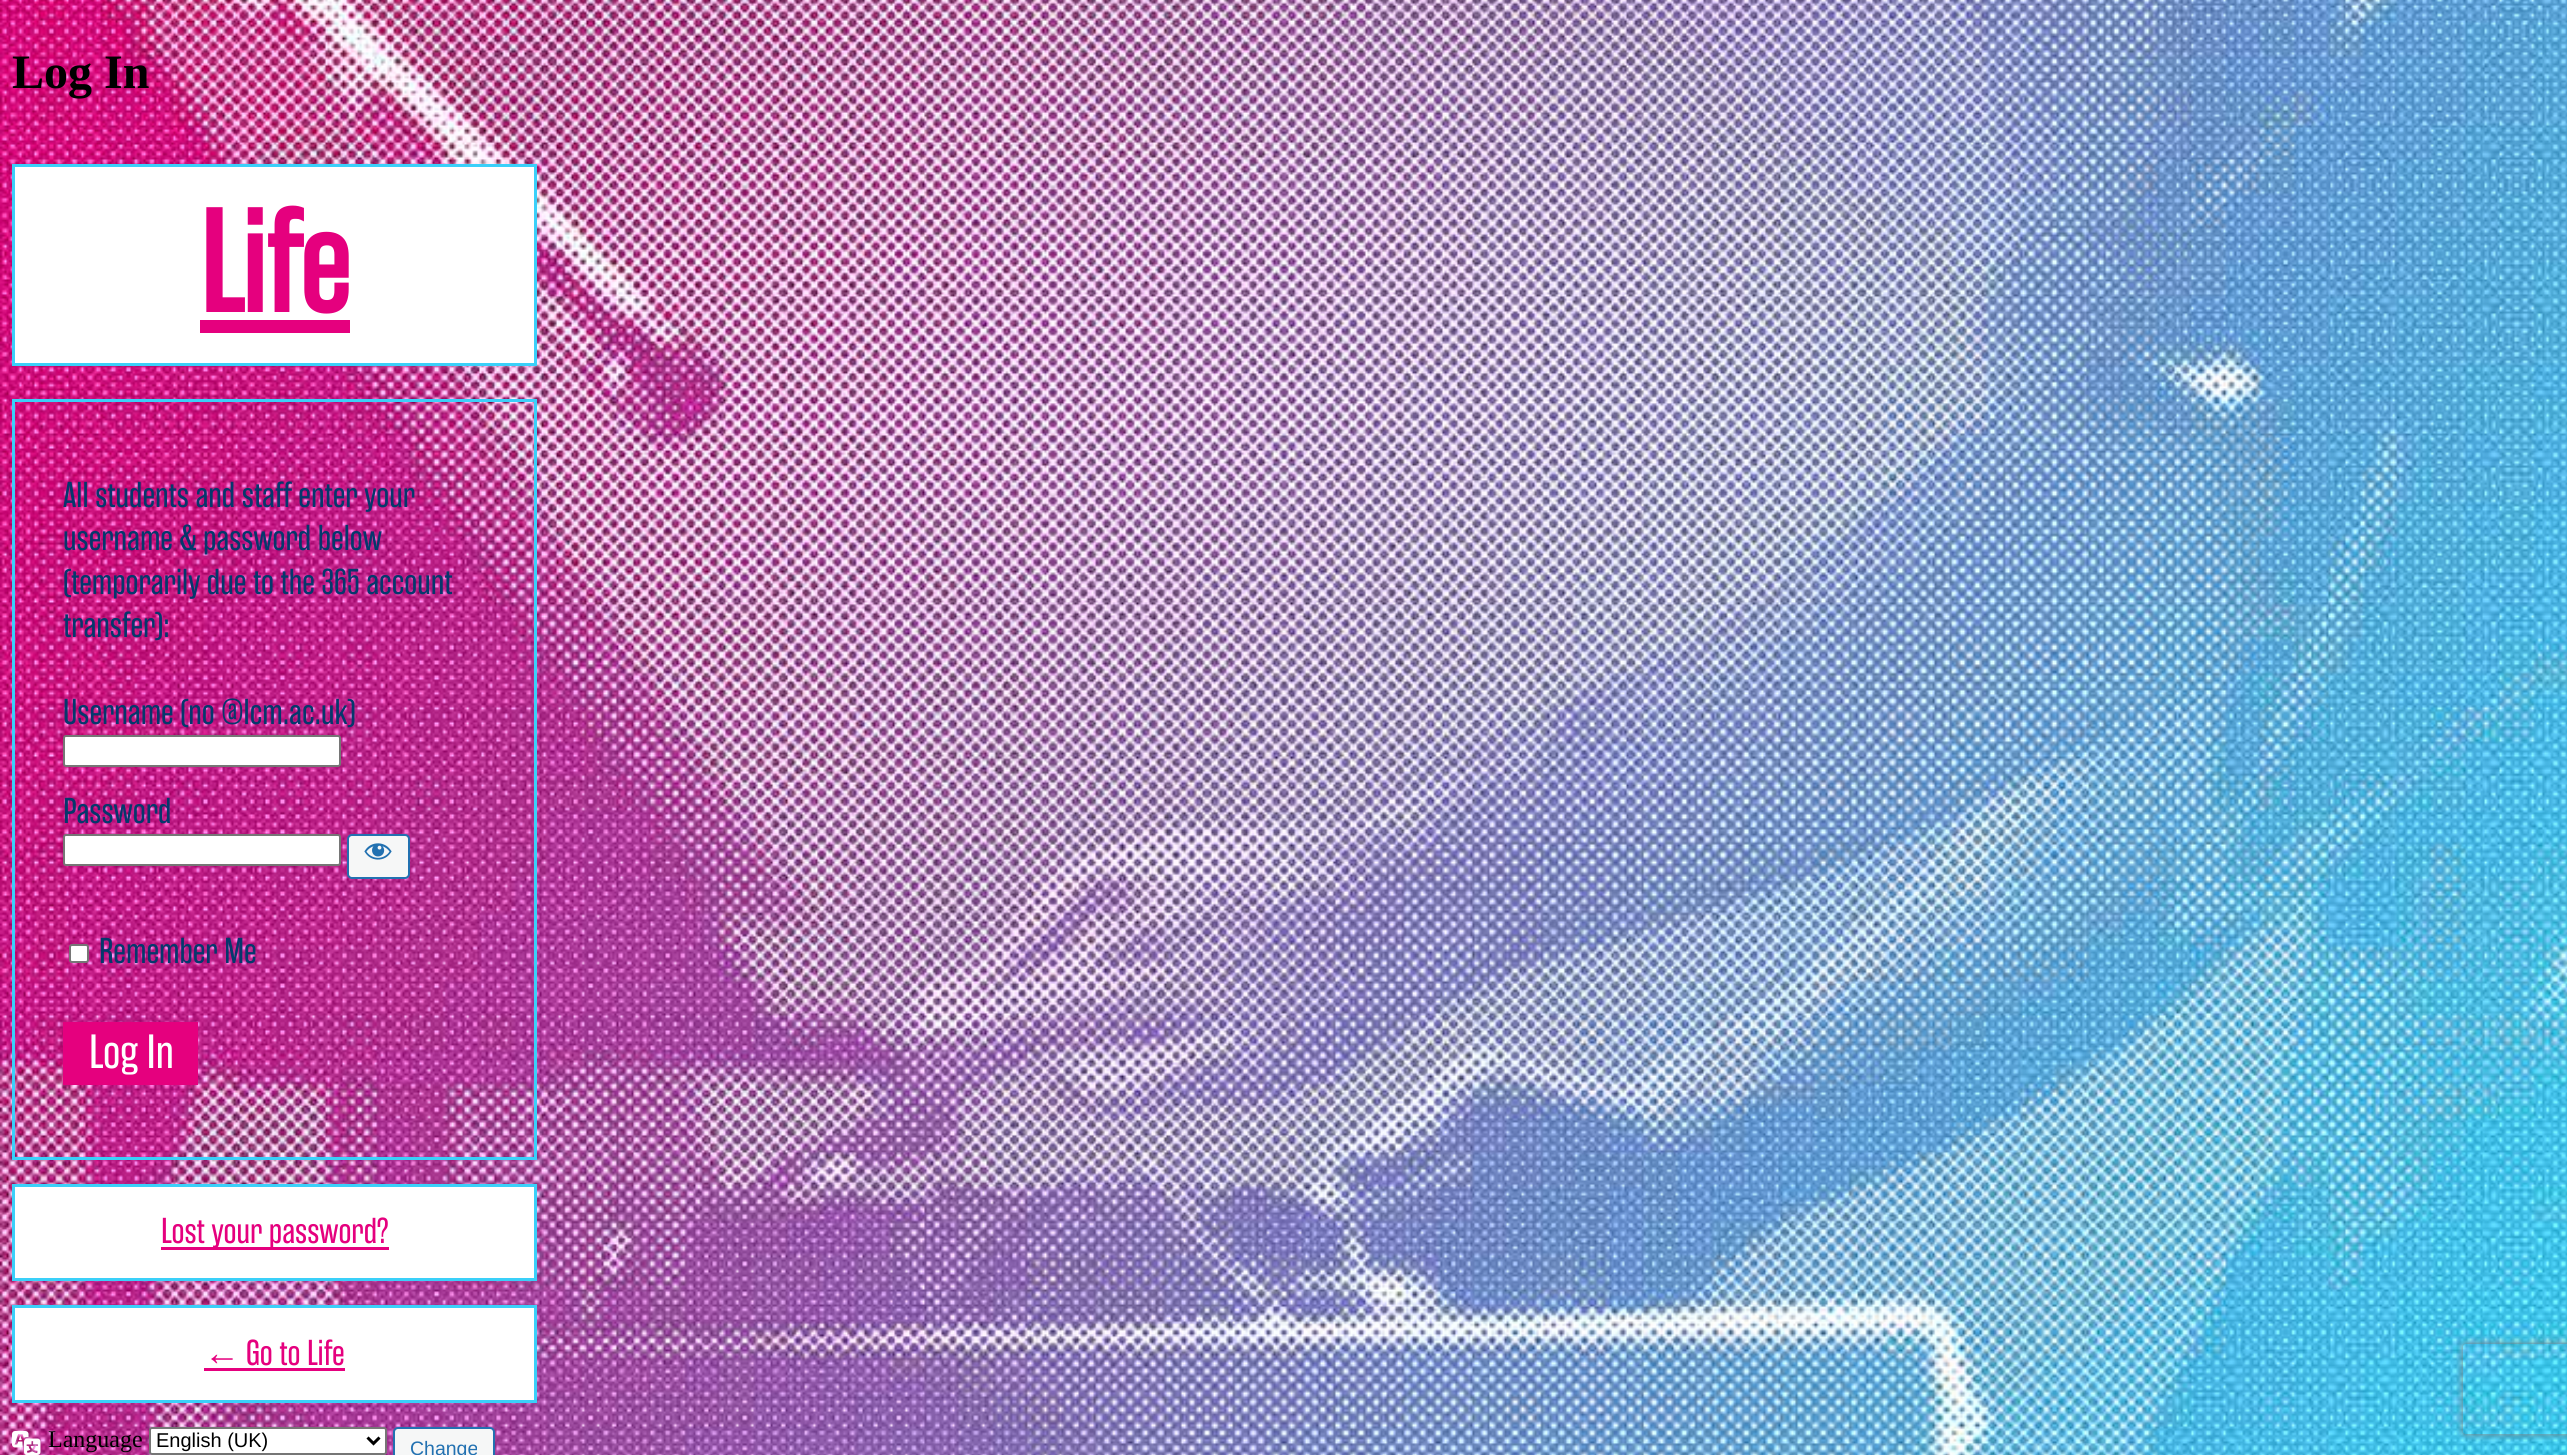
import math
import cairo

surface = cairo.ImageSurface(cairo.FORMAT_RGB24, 2567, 1455)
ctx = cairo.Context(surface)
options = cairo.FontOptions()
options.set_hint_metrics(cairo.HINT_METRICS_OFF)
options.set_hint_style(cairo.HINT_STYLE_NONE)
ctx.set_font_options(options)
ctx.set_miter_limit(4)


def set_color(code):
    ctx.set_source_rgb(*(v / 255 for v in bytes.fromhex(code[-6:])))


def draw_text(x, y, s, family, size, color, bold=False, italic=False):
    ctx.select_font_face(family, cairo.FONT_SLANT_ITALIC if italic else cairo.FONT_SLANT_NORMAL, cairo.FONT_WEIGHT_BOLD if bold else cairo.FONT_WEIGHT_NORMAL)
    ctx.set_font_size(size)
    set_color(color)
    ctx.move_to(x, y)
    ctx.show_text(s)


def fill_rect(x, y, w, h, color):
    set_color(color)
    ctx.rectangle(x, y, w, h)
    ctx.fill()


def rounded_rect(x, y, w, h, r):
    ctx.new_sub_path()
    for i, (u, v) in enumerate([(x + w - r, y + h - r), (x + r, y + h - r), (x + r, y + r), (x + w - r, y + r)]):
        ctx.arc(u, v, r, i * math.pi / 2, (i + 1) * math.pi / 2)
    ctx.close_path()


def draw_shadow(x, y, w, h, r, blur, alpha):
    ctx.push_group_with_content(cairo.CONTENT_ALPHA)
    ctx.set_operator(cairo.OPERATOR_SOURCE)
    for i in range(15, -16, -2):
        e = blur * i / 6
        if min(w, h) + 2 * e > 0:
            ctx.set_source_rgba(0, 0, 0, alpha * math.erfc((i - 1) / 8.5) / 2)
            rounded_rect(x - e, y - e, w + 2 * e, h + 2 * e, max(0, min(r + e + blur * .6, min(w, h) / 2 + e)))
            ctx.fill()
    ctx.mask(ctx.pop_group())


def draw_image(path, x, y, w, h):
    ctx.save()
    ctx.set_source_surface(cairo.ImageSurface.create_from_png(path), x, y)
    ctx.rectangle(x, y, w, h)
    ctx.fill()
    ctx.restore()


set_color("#ffffff")
ctx.paint()
draw_image("assets/img1.png", 0, 0, 2567, 1455)
draw_text(12, 88, "Log In", "Liberation Serif", 48, "#000000", bold=True)
set_color("#ffffff")
ctx.rectangle(13.5, 165.5, 522, 199)
ctx.fill_preserve()
set_color("#3ad0f9")
ctx.set_line_width(3)
ctx.stroke()
draw_text(199, 312, "Life", "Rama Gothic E", 144, "#e5007e", bold=True)
fill_rect(200, 320, 150, 13, "#e5007e")
ctx.rectangle(13.5, 400.5, 522, 758)
set_color("#3ad0f9")
ctx.stroke()
draw_text(63, 507, "All students and staff enter your", "Rama Gothic E", 36, "#05386c")
draw_text(63, 550, "username & password below", "Rama Gothic E", 36, "#05386c")
draw_text(63, 594, "(temporarily due to the 365 account", "Rama Gothic E", 36, "#05386c")
draw_text(63, 637, "transfer):", "Rama Gothic E", 36, "#05386c")
draw_text(63, 724, "Username (no @lcm.ac.uk)", "Rama Gothic E", 36, "#05386c")
set_color("#ffffff")
rounded_rect(64, 736, 276, 30, 2)
ctx.fill_preserve()
set_color("#767676")
ctx.set_line_width(2)
ctx.stroke()
draw_text(63, 823, "Password", "Rama Gothic E", 36, "#05386c")
set_color("#ffffff")
rounded_rect(64, 835, 276, 30, 2)
ctx.fill_preserve()
set_color("#767676")
ctx.stroke()
set_color("#f6f7f7")
rounded_rect(348, 835, 61, 43, 4)
ctx.fill_preserve()
set_color("#2271b1")
ctx.stroke()
draw_image("assets/img2.png", 364, 843, 28, 17)
set_color("#ffffff")
rounded_rect(70, 945, 18, 17, 2)
ctx.fill_preserve()
set_color("#767676")
ctx.stroke()
draw_text(99, 963, "Remember Me", "Rama Gothic E", 36, "#05386c")
fill_rect(63, 1022, 135, 63, "#e5007e")
draw_text(89, 1068, "Log In", "Rama Gothic E", 48, "#ffffff")
ctx.rectangle(13.5, 1185.5, 522, 94)
ctx.fill_preserve()
set_color("#3ad0f9")
ctx.set_line_width(3)
ctx.stroke()
fill_rect(161, 1247, 228, 3, "#e5007e")
draw_text(161, 1243, "Lost your password?", "Rama Gothic E", 36, "#e5007e")
set_color("#ffffff")
ctx.rectangle(13.5, 1306.5, 522, 95)
ctx.fill_preserve()
set_color("#3ad0f9")
ctx.stroke()
draw_text(204, 1365, "←", "Liberation Sans", 36, "#e5007e")
fill_rect(204, 1368, 141, 3, "#e5007e")
draw_text(246, 1365, "Go to Life", "Rama Gothic E", 36, "#e5007e")
draw_image("assets/img3.png", 12, 1431, 29, 24)
draw_text(48, 1447, "Language", "Liberation Serif", 24, "#000000")
set_color("#ffffff")
rounded_rect(150, 1428, 236, 26, 2)
ctx.fill_preserve()
set_color("#767676")
ctx.set_line_width(2)
ctx.stroke()
ctx.new_path()
ctx.move_to(367.5, 1437.5)
ctx.line_to(373.5, 1443.5)
ctx.line_to(379.5, 1437.5)
set_color("#000000")
ctx.set_line_width(3)
ctx.stroke()
draw_text(156, 1447, "English (UK)", "Liberation Sans", 20, "#000000")
set_color("#f6f7f7")
rounded_rect(394, 1428, 100, 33, 4)
ctx.fill_preserve()
set_color("#2271b1")
ctx.set_line_width(2)
ctx.stroke()
draw_text(410, 1455, "Change", "Liberation Sans", 19.5, "#2271b1")
ctx.save()
ctx.set_fill_rule(cairo.FILL_RULE_EVEN_ODD)
ctx.new_path()
ctx.move_to(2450, 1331)
ctx.line_to(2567, 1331)
ctx.line_to(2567, 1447)
ctx.line_to(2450, 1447)
ctx.close_path()
ctx.move_to(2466, 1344)
ctx.line_to(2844, 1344)
ctx.curve_to(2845.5, 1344, 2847, 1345.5, 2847, 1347)
ctx.line_to(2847, 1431)
ctx.curve_to(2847, 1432.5, 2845.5, 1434, 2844, 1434)
ctx.line_to(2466, 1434)
ctx.curve_to(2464.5, 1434, 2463, 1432.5, 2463, 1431)
ctx.line_to(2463, 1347)
ctx.curve_to(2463, 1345.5, 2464.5, 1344, 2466, 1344)
ctx.close_path()
ctx.clip()
set_color("#808080")
draw_shadow(2463, 1344, 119, 90, 3, 4, 1)
ctx.restore()
surface.write_to_png("output.png")
